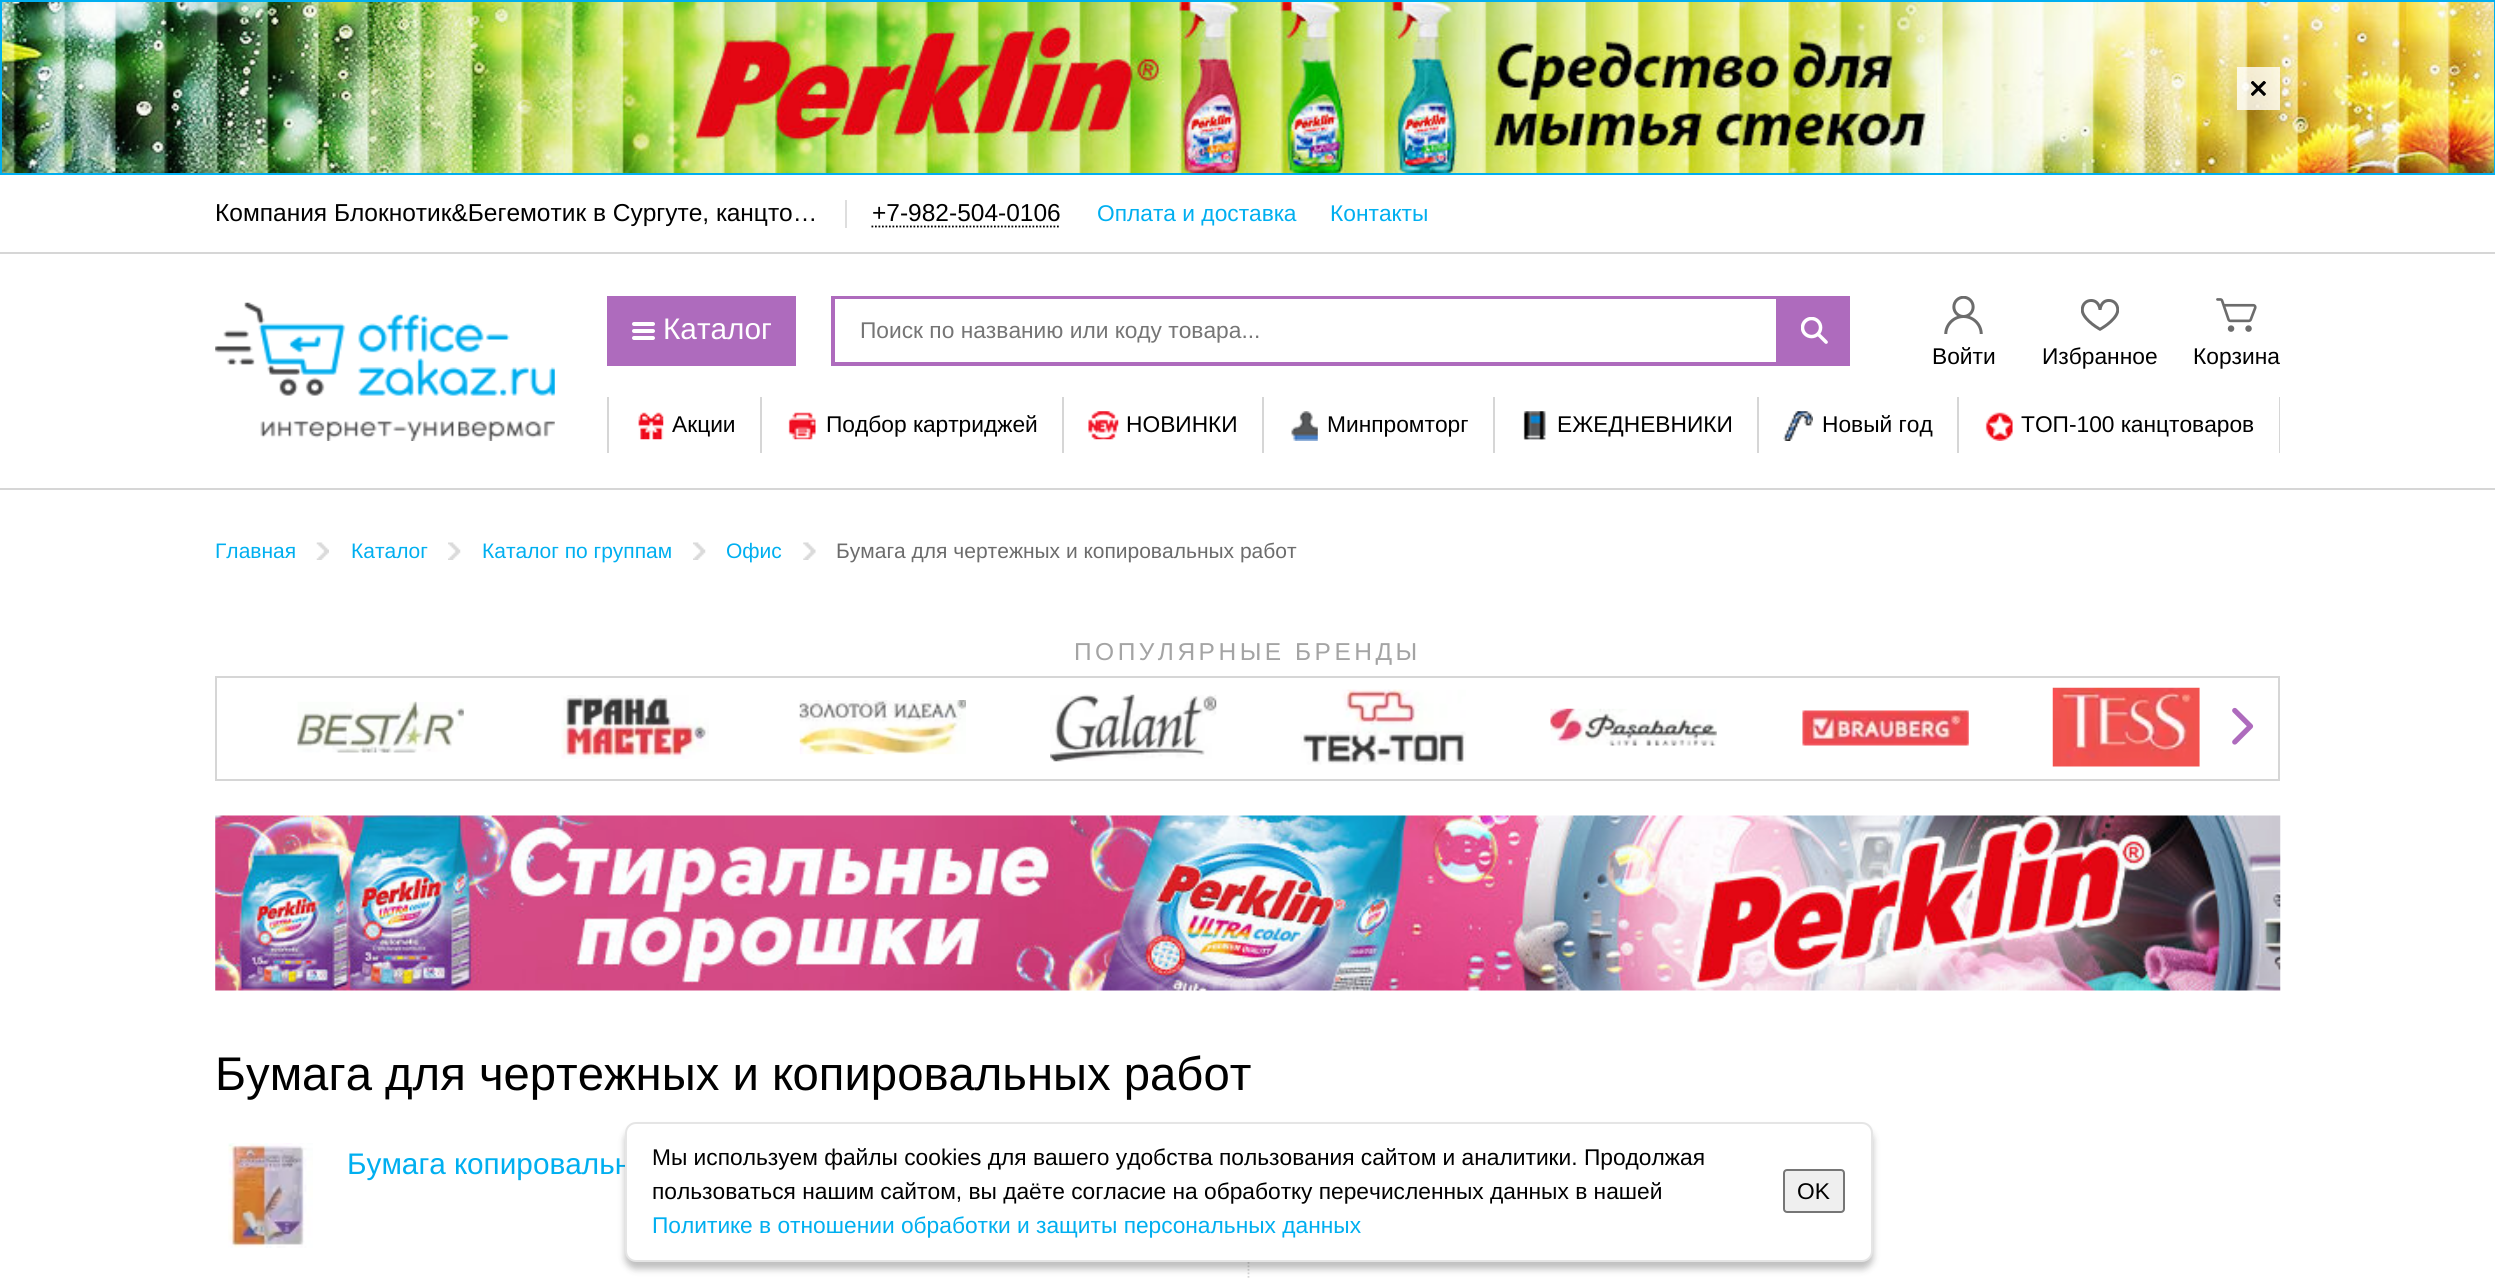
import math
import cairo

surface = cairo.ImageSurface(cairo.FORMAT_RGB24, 2495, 1279)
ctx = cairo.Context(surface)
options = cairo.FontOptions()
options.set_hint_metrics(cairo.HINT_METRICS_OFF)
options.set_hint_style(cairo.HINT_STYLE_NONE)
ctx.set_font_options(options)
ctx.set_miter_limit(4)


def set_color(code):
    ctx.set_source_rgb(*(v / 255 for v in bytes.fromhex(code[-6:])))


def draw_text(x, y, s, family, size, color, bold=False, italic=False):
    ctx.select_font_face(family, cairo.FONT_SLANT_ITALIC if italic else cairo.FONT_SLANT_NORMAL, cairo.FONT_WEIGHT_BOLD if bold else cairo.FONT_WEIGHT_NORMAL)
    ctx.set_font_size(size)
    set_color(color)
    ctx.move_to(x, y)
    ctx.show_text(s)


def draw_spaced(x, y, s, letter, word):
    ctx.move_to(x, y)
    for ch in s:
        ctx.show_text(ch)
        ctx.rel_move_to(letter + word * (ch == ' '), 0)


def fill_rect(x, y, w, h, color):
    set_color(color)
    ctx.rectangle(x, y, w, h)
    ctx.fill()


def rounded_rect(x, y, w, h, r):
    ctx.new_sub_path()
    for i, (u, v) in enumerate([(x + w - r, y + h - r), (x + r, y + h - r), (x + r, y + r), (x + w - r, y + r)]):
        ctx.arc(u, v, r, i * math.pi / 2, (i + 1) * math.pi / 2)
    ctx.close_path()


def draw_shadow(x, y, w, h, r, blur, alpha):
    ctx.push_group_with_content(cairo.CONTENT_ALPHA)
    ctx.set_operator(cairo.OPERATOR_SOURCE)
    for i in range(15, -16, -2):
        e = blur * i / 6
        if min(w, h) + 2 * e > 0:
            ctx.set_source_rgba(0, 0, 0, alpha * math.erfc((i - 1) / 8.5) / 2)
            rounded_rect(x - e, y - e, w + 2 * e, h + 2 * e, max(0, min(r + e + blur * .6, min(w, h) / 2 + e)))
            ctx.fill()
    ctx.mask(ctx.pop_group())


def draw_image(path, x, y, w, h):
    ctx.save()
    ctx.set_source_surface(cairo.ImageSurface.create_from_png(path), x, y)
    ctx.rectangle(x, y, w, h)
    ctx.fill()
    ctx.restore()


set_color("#ffffff")
ctx.paint()
draw_image("assets/img1.png", 2, 2, 2492, 171)
ctx.rectangle(1, 1, 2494, 173)
set_color("#00aff0")
ctx.stroke()
ctx.set_source_rgba(1, 1, 1, 0.8)
ctx.rectangle(2237, 67, 43, 43)
ctx.fill()
draw_image("assets/img2.png", 2251, 81, 15, 15)
fill_rect(0, 252, 2495, 2, "#d6d6d6")
draw_text(215, 221, "Компания Блокнотик&Бегемотик в Сургуте, канцто…", "Liberation Sans", 24.5, "#000000")
fill_rect(845, 200, 2, 28, "#dedede")
draw_text(872, 221, "+7-982-504-0106", "Liberation Sans", 24.5, "#000000")
ctx.new_path()
ctx.move_to(871.5, 226.5)
ctx.line_to(1060.5, 226.5)
ctx.set_line_width(1.8)
ctx.set_dash([1.75, 1.75])
ctx.stroke()
draw_text(1097, 221, "Оплата и доставка", "Liberation Sans", 22.75, "#00aff0")
draw_text(1330, 221, "Контакты", "Liberation Sans", 22.75, "#00aff0")
fill_rect(0, 488, 2495, 2, "#d6d6d6")
draw_image("assets/img3.png", 215, 302, 340, 139)
fill_rect(607, 296, 189, 70, "#ae6bbd")
set_color("#ffffff")
rounded_rect(632, 329, 23, 4, 2)
ctx.fill()
rounded_rect(632, 322, 23, 4, 2)
ctx.fill()
rounded_rect(632, 336, 23, 4, 2)
ctx.fill()
draw_text(663, 339, "Каталог", "Liberation Sans", 29.75, "#ffffff")
ctx.rectangle(833, 298, 1015, 66)
set_color("#ae6bbd")
ctx.set_line_width(4)
ctx.set_dash([])
ctx.stroke()
fill_rect(835, 299, 941, 1, "#ffffff")
draw_text(860, 338, "Поиск по названию или коду товара...", "Liberation Sans", 22.75, "#757575")
fill_rect(1776, 300, 70, 62, "#ae6bbd")
draw_image("assets/img4.png", 1801, 317, 27, 27)
draw_image("assets/img5.png", 1944, 296, 39, 38)
draw_text(1932, 364, "Войти", "Liberation Sans", 22.75, "#000000")
draw_image("assets/img6.png", 2081, 299, 38, 32)
draw_text(2042, 364, "Избранное", "Liberation Sans", 22.75, "#000000")
draw_image("assets/img7.png", 2216, 298, 41, 34)
draw_text(2193, 364, "Корзина", "Liberation Sans", 22.75, "#000000")
fill_rect(760, 397, 2, 56, "#d6d6d6")
fill_rect(607, 397, 2, 56, "#d6d6d6")
draw_image("assets/img8.png", 638, 412, 26, 28)
draw_text(672, 432, "Акции", "Liberation Sans", 22.75, "#000000")
fill_rect(1062, 397, 2, 56, "#d6d6d6")
draw_image("assets/img9.png", 788, 412, 28, 28)
draw_text(826, 432, "Подбор картриджей", "Liberation Sans", 22.75, "#000000")
fill_rect(1262, 397, 2, 56, "#d6d6d6")
draw_image("assets/img10.png", 1088, 411, 31, 29)
draw_text(1126, 432, "НОВИНКИ", "Liberation Sans", 22.75, "#000000")
fill_rect(1493, 397, 2, 56, "#d6d6d6")
draw_image("assets/img11.png", 1291, 411, 27, 30)
draw_text(1327, 432, "Минпромторг", "Liberation Sans", 22.75, "#000000")
fill_rect(1757, 397, 2, 56, "#d6d6d6")
draw_image("assets/img12.png", 1523, 411, 23, 29)
draw_text(1557, 432, "ЕЖЕДНЕВНИКИ", "Liberation Sans", 22.75, "#000000")
fill_rect(1957, 397, 2, 56, "#d6d6d6")
draw_image("assets/img13.png", 1783, 411, 30, 30)
draw_text(1822, 432, "Новый год", "Liberation Sans", 22.75, "#000000")
fill_rect(2279, 397, 1, 56, "#d6d6d6")
draw_image("assets/img14.png", 1985, 412, 28, 29)
draw_text(2021, 432, "ТОП-100 канцтоваров", "Liberation Sans", 22.75, "#000000")
draw_text(215, 558, "Главная", "Liberation Sans", 21, "#00aff0")
draw_image("assets/img15.png", 316, 542, 13, 18)
draw_text(351, 558, "Каталог", "Liberation Sans", 21, "#00aff0")
draw_image("assets/img16.png", 448, 542, 13, 18)
draw_text(482, 558, "Каталог по группам", "Liberation Sans", 21, "#00aff0")
draw_image("assets/img17.png", 693, 542, 13, 18)
draw_text(726, 558, "Офис", "Liberation Sans", 21, "#00aff0")
draw_image("assets/img18.png", 803, 542, 13, 18)
draw_text(836, 558, "Бумага для чертежных и копировальных работ", "Liberation Sans", 21, "#6c6c6c")
ctx.set_font_size(24.5)
set_color("#a4a4a4")
draw_spaced(1074, 660, "ПОПУЛЯРНЫЕ БРЕНДЫ", 3.5, 0)
ctx.rectangle(216, 677, 2063, 103)
set_color("#d6d6d6")
ctx.set_line_width(2)
ctx.stroke()
draw_image("assets/img19.png", 297, 701, 167, 52)
draw_image("assets/img20.png", 561, 695, 148, 64)
draw_image("assets/img21.png", 799, 700, 167, 55)
draw_image("assets/img22.png", 1050, 694, 167, 68)
draw_image("assets/img23.png", 1300, 689, 166, 76)
draw_image("assets/img24.png", 1550, 708, 167, 38)
draw_image("assets/img25.png", 1802, 710, 167, 36)
draw_image("assets/img26.png", 2052, 687, 148, 80)
draw_image("assets/img27.png", 2232, 707, 22, 38)
draw_image("assets/img28.png", 215, 815, 2066, 176)
draw_text(215, 1090, "Бумага для чертежных и копировальных работ", "Liberation Sans", 47.25, "#000000")
draw_image("assets/img29.png", 228, 1143, 85, 105)
draw_text(347, 1174, "Бумага копировальн", "Liberation Sans", 29.75, "#00aff0")
ctx.new_path()
ctx.move_to(1248.5, 1143)
ctx.line_to(1248.5, 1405)
set_color("#d6d6d6")
ctx.set_line_width(1.8)
ctx.set_dash([1.75, 1.75])
ctx.stroke()
set_color("#000000")
draw_shadow(625, 1129, 1248, 140, 11, 3.5, 0.25)
set_color("#ffffff")
rounded_rect(626, 1123, 1246, 138, 10)
ctx.fill_preserve()
set_color("#e5e5e5")
ctx.set_line_width(2)
ctx.set_dash([])
ctx.stroke()
draw_text(652, 1165, "Мы используем файлы cookies для вашего удобства пользования сайтом и аналитики. Продолжая", "Liberation Sans", 22.75, "#000000")
draw_text(652, 1199, "пользоваться нашим сайтом, вы даёте согласие на обработку перечисленных данных в нашей", "Liberation Sans", 22.75, "#000000")
draw_text(652, 1233, "Политике в отношении обработки и защиты персональных данных", "Liberation Sans", 22.75, "#00aff0")
set_color("#efefef")
rounded_rect(1784, 1170, 60, 42, 3)
ctx.fill_preserve()
set_color("#767676")
ctx.stroke()
draw_text(1797, 1199, "OK", "Liberation Sans", 22.75, "#000000")
surface.write_to_png("output.png")
